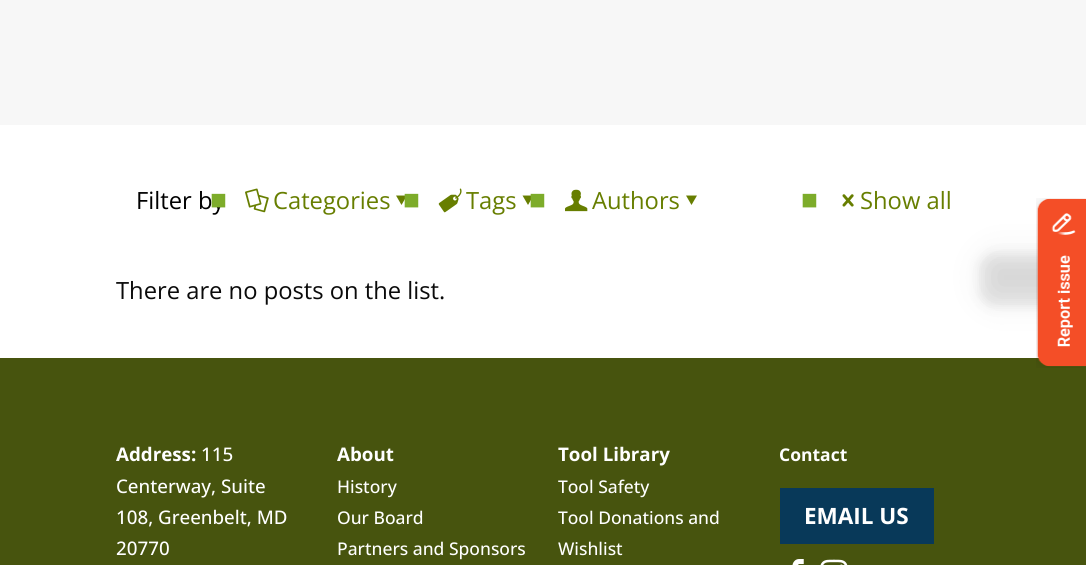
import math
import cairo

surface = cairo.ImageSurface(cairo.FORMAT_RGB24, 1086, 565)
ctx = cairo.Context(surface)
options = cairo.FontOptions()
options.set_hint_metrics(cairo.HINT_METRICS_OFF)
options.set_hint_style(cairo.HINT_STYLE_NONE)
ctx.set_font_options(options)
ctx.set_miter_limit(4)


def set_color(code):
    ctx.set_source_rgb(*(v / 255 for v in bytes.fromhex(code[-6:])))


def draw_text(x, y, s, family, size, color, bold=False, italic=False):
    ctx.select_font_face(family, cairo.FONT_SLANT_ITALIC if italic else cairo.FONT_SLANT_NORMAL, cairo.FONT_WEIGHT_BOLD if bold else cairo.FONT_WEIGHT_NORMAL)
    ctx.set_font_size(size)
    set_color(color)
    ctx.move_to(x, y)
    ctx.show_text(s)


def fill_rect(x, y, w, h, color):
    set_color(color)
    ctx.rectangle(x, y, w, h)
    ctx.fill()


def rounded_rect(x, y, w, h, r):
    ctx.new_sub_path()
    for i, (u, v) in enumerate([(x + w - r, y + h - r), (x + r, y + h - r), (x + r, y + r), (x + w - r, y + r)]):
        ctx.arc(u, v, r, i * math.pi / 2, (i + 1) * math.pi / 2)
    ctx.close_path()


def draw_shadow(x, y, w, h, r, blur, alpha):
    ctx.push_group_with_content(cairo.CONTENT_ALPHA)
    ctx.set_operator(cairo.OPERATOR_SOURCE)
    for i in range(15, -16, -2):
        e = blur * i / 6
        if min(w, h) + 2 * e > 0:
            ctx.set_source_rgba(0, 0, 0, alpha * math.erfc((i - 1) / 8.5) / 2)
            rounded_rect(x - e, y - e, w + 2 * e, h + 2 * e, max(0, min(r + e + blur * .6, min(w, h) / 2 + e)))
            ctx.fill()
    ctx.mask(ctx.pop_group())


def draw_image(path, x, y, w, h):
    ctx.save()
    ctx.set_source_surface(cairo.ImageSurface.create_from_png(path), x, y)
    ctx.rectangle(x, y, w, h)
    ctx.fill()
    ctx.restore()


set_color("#ffffff")
ctx.paint()
fill_rect(0, 0, 1086, 125, "#f7f7f7")
draw_text(136, 209, "Filter by", "Open Sans", 23.75, "#000000")
draw_text(210, 209, "■", "Liberation Sans", 28, "#7dac2a", bold=True)
draw_image("assets/img1.png", 245, 188, 24, 25)
draw_text(273, 209, "Categories", "Open Sans", 23.75, "#677e00")
ctx.new_path()
ctx.move_to(407, 195.5)
ctx.line_to(401.5, 205)
ctx.line_to(396, 195.5)
ctx.close_path()
ctx.fill()
draw_text(403, 209, "■", "Liberation Sans", 28, "#7dac2a", bold=True)
draw_image("assets/img2.png", 438, 188, 24, 25)
draw_text(466, 209, "Tags", "Open Sans", 23.75, "#677e00")
ctx.new_path()
ctx.move_to(533.5, 195.5)
ctx.line_to(528, 205)
ctx.line_to(522.5, 195.5)
ctx.close_path()
ctx.fill()
draw_text(529, 209, "■", "Liberation Sans", 28, "#7dac2a", bold=True)
draw_image("assets/img3.png", 565, 189, 23, 23)
draw_text(592, 209, "Authors", "Open Sans", 23.75, "#677e00")
ctx.new_path()
ctx.move_to(697, 195.5)
ctx.line_to(691.5, 205)
ctx.line_to(686, 195.5)
ctx.close_path()
ctx.fill()
draw_text(801, 209, "■", "Liberation Sans", 28, "#7dac2a", bold=True)
draw_image("assets/img4.png", 842, 194, 12, 13)
draw_text(860, 209, "Show all", "Open Sans", 23.75, "#677e00")
draw_text(116, 299, "There are no posts on the list.", "Open Sans", 23.75, "#0a0a0a")
fill_rect(0, 358, 1086, 207, "#47540e")
draw_text(116, 461, "Address:", "Open Sans", 18.75, "#ffffff", bold=True)
draw_text(201, 461, "115", "Open Sans Medium", 18.75, "#ffffff")
draw_text(116, 493, "Centerway, Suite", "Open Sans Medium", 18.75, "#ffffff")
draw_text(116, 524, "108, Greenbelt, MD", "Open Sans Medium", 18.75, "#ffffff")
draw_text(116, 555, "20770", "Open Sans Medium", 18.75, "#ffffff")
draw_text(337, 461, "About", "Open Sans", 18.75, "#ffffff", bold=True)
draw_text(337, 493, "History", "Open Sans Medium", 17.5, "#ffffff")
draw_text(337, 524, "Our Board", "Open Sans Medium", 17.5, "#ffffff")
draw_text(337, 555, "Partners and Sponsors", "Open Sans Medium", 17.5, "#ffffff")
draw_text(558, 461, "Tool Library", "Open Sans", 18.75, "#ffffff", bold=True)
draw_text(558, 493, "Tool Safety", "Open Sans Medium", 17.5, "#ffffff")
draw_text(558, 524, "Tool Donations and", "Open Sans Medium", 17.5, "#ffffff")
draw_text(558, 555, "Wishlist", "Open Sans Medium", 17.5, "#ffffff")
draw_text(779, 461, "Contact", "Open Sans", 17.5, "#ffffff", bold=True)
fill_rect(780, 488, 154, 56, "#083959")
draw_text(804, 524, "EMAIL US", "Open Sans", 22.5, "#ffffff", bold=True)
draw_image("assets/img5.png", 792, 559, 12, 6)
draw_image("assets/img6.png", 820, 559, 28, 6)
set_color("#000000")
draw_shadow(980, 254, 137, 52, 13, 6, 0.09)
draw_shadow(988, 259, 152, 37, 5, 19, 0.09)
draw_image("assets/img7.png", 1036, 198, 50, 170)
surface.write_to_png("output.png")
